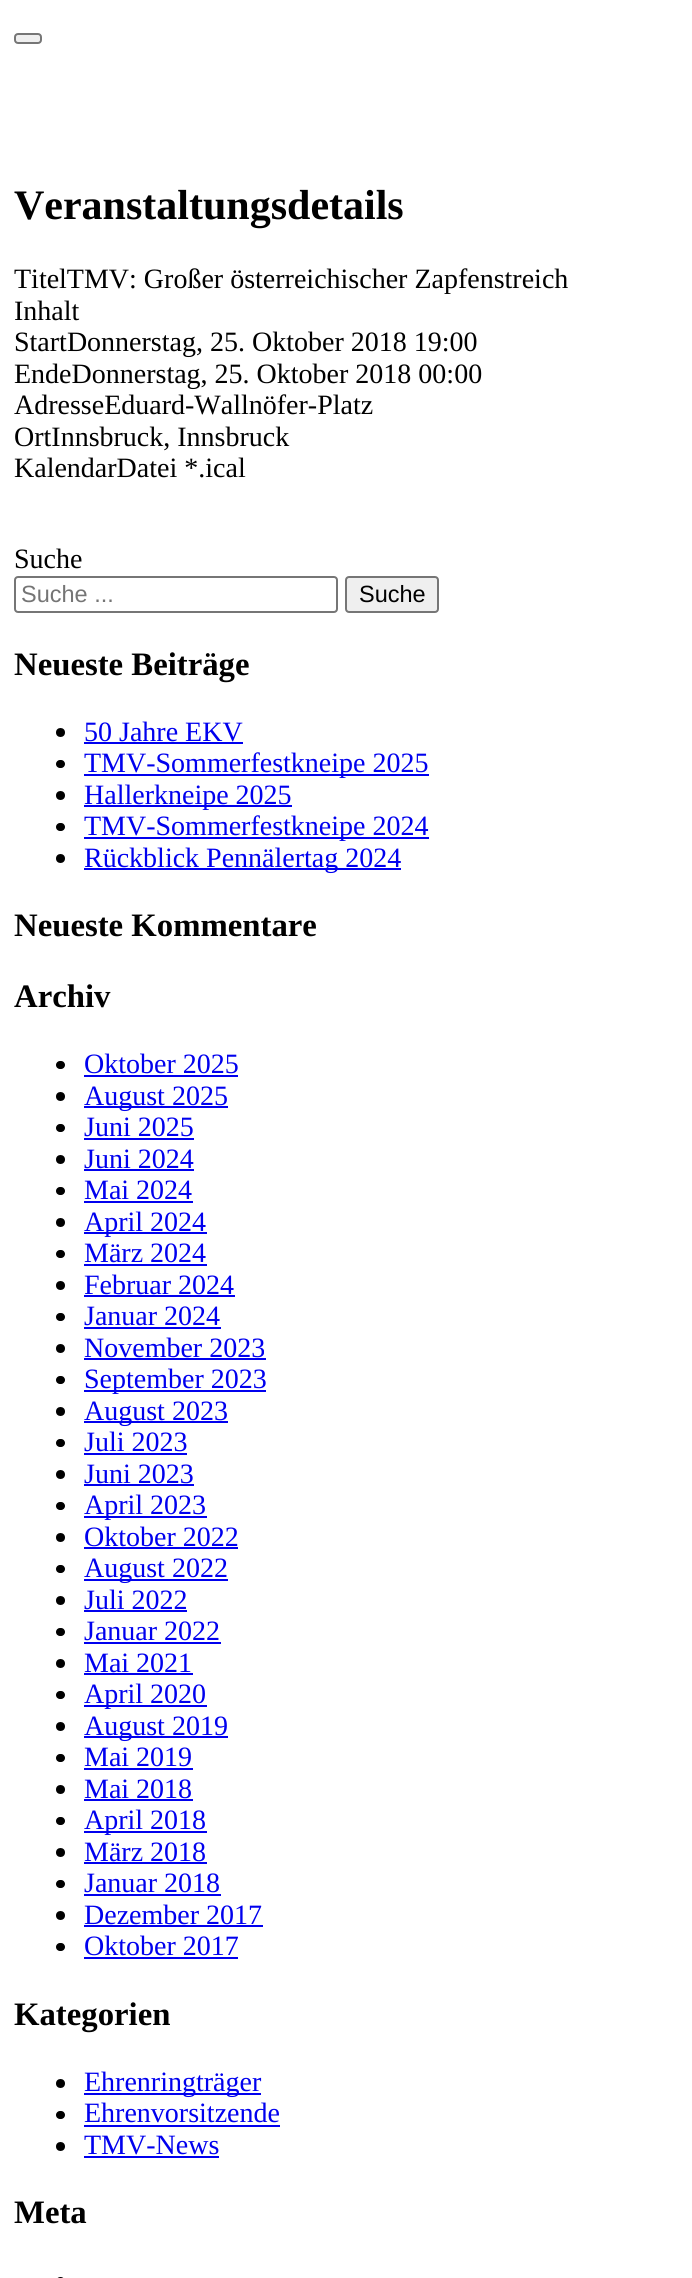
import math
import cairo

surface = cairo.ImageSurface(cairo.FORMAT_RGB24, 692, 2278)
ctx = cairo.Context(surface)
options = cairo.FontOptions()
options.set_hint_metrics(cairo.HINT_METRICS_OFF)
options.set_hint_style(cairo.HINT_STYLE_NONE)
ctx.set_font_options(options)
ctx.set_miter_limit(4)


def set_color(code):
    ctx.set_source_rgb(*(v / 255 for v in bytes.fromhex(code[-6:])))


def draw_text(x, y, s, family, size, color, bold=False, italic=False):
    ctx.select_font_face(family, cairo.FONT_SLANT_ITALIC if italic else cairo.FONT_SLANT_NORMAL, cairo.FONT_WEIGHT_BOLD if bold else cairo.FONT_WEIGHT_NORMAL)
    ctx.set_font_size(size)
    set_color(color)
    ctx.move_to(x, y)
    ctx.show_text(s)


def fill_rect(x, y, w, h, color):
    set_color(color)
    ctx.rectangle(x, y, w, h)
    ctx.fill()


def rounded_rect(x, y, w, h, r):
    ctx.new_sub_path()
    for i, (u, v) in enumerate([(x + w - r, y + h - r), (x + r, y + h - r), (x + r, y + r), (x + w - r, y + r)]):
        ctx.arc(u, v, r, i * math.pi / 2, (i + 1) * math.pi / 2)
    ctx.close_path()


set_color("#ffffff")
ctx.paint()
set_color("#efefef")
rounded_rect(15, 34, 26, 9, 3)
ctx.fill_preserve()
set_color("#767676")
ctx.stroke()
draw_text(14, 219, "Veranstaltungsdetails", "Liberation Serif", 42, "#000000", bold=True)
draw_text(14, 288, "TitelTMV: Großer österreichischer Zapfenstreich", "Liberation Serif", 28, "#000000")
draw_text(14, 320, "Inhalt", "Liberation Serif", 28, "#000000")
draw_text(14, 351, "StartDonnerstag, 25. Oktober 2018 19:00", "Liberation Serif", 28, "#000000")
draw_text(14, 383, "EndeDonnerstag, 25. Oktober 2018 00:00", "Liberation Serif", 28, "#000000")
draw_text(14, 414, "AdresseEduard-Wallnöfer-Platz", "Liberation Serif", 28, "#000000")
draw_text(14, 446, "OrtInnsbruck, Innsbruck", "Liberation Serif", 28, "#000000")
draw_text(14, 477, "KalendarDatei *.ical", "Liberation Serif", 28, "#000000")
draw_text(14, 568, "Suche", "Liberation Serif", 28, "#000000")
rounded_rect(15, 577, 322, 35, 3)
set_color("#767676")
ctx.stroke()
draw_text(21, 602, "Suche ...", "Liberation Sans", 23.5, "#757575")
set_color("#efefef")
rounded_rect(346, 577, 92, 35, 3)
ctx.fill_preserve()
set_color("#767676")
ctx.stroke()
draw_text(359, 602, "Suche", "Liberation Sans", 23.5, "#000000")
draw_text(14, 675, "Neueste Beiträge", "Liberation Serif", 32.75, "#000000", bold=True)
ctx.new_path()
ctx.arc(60.5, 732.5, 4.5, 0, 2 * math.pi)
ctx.fill()
draw_text(84, 741, "50 Jahre EKV", "Liberation Serif", 28, "#0000ee")
fill_rect(84, 742, 159, 2, "#0000ee")
set_color("#000000")
rounded_rect(56, 760, 9, 8, 4)
ctx.fill()
fill_rect(84, 774, 345, 2, "#0000ee")
draw_text(84, 772, "TMV-Sommerfestkneipe 2025", "Liberation Serif", 28, "#0000ee")
set_color("#000000")
ctx.new_path()
ctx.arc(60.5, 795.5, 4.5, 0, 2 * math.pi)
ctx.fill()
fill_rect(84, 805, 208, 2, "#0000ee")
draw_text(84, 804, "Hallerkneipe 2025", "Liberation Serif", 28, "#0000ee")
set_color("#000000")
rounded_rect(56, 823, 9, 8, 4)
ctx.fill()
fill_rect(84, 837, 345, 2, "#0000ee")
draw_text(84, 835, "TMV-Sommerfestkneipe 2024", "Liberation Serif", 28, "#0000ee")
set_color("#000000")
ctx.new_path()
ctx.arc(60.5, 858.5, 4.5, 0, 2 * math.pi)
ctx.fill()
fill_rect(84, 868, 317, 2, "#0000ee")
draw_text(84, 867, "Rückblick Pennälertag 2024", "Liberation Serif", 28, "#0000ee")
draw_text(14, 936, "Neueste Kommentare", "Liberation Serif", 32.75, "#000000", bold=True)
draw_text(14, 1007, "Archiv", "Liberation Serif", 32.75, "#000000", bold=True)
rounded_rect(56, 1061, 9, 8, 4)
ctx.fill()
draw_text(84, 1073, "Oktober 2025", "Liberation Serif", 28, "#0000ee")
fill_rect(84, 1075, 154, 2, "#0000ee")
set_color("#000000")
ctx.new_path()
ctx.arc(60.5, 1096.5, 4.5, 0, 2 * math.pi)
ctx.fill()
fill_rect(84, 1106, 144, 2, "#0000ee")
draw_text(84, 1105, "August 2025", "Liberation Serif", 28, "#0000ee")
set_color("#000000")
rounded_rect(56, 1124, 9, 8, 4)
ctx.fill()
draw_text(84, 1136, "Juni 2025", "Liberation Serif", 28, "#0000ee")
fill_rect(84, 1138, 110, 2, "#0000ee")
set_color("#000000")
ctx.new_path()
ctx.arc(60.5, 1159.5, 4.5, 0, 2 * math.pi)
ctx.fill()
draw_text(84, 1168, "Juni 2024", "Liberation Serif", 28, "#0000ee")
fill_rect(84, 1169, 110, 2, "#0000ee")
set_color("#000000")
rounded_rect(56, 1187, 9, 8, 4)
ctx.fill()
draw_text(84, 1199, "Mai 2024", "Liberation Serif", 28, "#0000ee")
fill_rect(84, 1201, 109, 2, "#0000ee")
set_color("#000000")
ctx.new_path()
ctx.arc(60.5, 1222.5, 4.5, 0, 2 * math.pi)
ctx.fill()
fill_rect(84, 1232, 123, 2, "#0000ee")
draw_text(84, 1231, "April 2024", "Liberation Serif", 28, "#0000ee")
set_color("#000000")
rounded_rect(56, 1250, 9, 8, 4)
ctx.fill()
draw_text(84, 1262, "März 2024", "Liberation Serif", 28, "#0000ee")
fill_rect(84, 1264, 123, 2, "#0000ee")
set_color("#000000")
ctx.new_path()
ctx.arc(60.5, 1285.5, 4.5, 0, 2 * math.pi)
ctx.fill()
draw_text(84, 1294, "Februar 2024", "Liberation Serif", 28, "#0000ee")
fill_rect(84, 1295, 151, 2, "#0000ee")
set_color("#000000")
rounded_rect(56, 1313, 9, 8, 4)
ctx.fill()
draw_text(84, 1325, "Januar 2024", "Liberation Serif", 28, "#0000ee")
fill_rect(84, 1327, 137, 2, "#0000ee")
set_color("#000000")
ctx.new_path()
ctx.arc(60.5, 1348.5, 4.5, 0, 2 * math.pi)
ctx.fill()
draw_text(84, 1357, "November 2023", "Liberation Serif", 28, "#0000ee")
fill_rect(84, 1358, 182, 2, "#0000ee")
set_color("#000000")
rounded_rect(56, 1376, 9, 8, 4)
ctx.fill()
fill_rect(84, 1390, 182, 2, "#0000ee")
draw_text(84, 1388, "September 2023", "Liberation Serif", 28, "#0000ee")
set_color("#000000")
ctx.new_path()
ctx.arc(60.5, 1411.5, 4.5, 0, 2 * math.pi)
ctx.fill()
fill_rect(84, 1421, 144, 2, "#0000ee")
draw_text(84, 1420, "August 2023", "Liberation Serif", 28, "#0000ee")
set_color("#000000")
rounded_rect(56, 1439, 9, 8, 4)
ctx.fill()
draw_text(84, 1451, "Juli 2023", "Liberation Serif", 28, "#0000ee")
fill_rect(84, 1453, 103, 2, "#0000ee")
set_color("#000000")
ctx.new_path()
ctx.arc(60.5, 1474.5, 4.5, 0, 2 * math.pi)
ctx.fill()
draw_text(84, 1483, "Juni 2023", "Liberation Serif", 28, "#0000ee")
fill_rect(84, 1484, 110, 2, "#0000ee")
set_color("#000000")
rounded_rect(56, 1502, 9, 8, 4)
ctx.fill()
fill_rect(84, 1516, 123, 2, "#0000ee")
draw_text(84, 1514, "April 2023", "Liberation Serif", 28, "#0000ee")
set_color("#000000")
ctx.new_path()
ctx.arc(60.5, 1537.5, 4.5, 0, 2 * math.pi)
ctx.fill()
draw_text(84, 1546, "Oktober 2022", "Liberation Serif", 28, "#0000ee")
fill_rect(84, 1547, 154, 2, "#0000ee")
set_color("#000000")
rounded_rect(56, 1565, 9, 8, 4)
ctx.fill()
fill_rect(84, 1579, 144, 2, "#0000ee")
draw_text(84, 1577, "August 2022", "Liberation Serif", 28, "#0000ee")
set_color("#000000")
ctx.new_path()
ctx.arc(60.5, 1600.5, 4.5, 0, 2 * math.pi)
ctx.fill()
draw_text(84, 1609, "Juli 2022", "Liberation Serif", 28, "#0000ee")
fill_rect(84, 1610, 103, 2, "#0000ee")
set_color("#000000")
rounded_rect(56, 1628, 9, 8, 4)
ctx.fill()
draw_text(84, 1640, "Januar 2022", "Liberation Serif", 28, "#0000ee")
fill_rect(84, 1642, 137, 2, "#0000ee")
set_color("#000000")
ctx.new_path()
ctx.arc(60.5, 1663.5, 4.5, 0, 2 * math.pi)
ctx.fill()
draw_text(84, 1672, "Mai 2021", "Liberation Serif", 28, "#0000ee")
fill_rect(84, 1673, 109, 2, "#0000ee")
set_color("#000000")
rounded_rect(56, 1691, 9, 8, 4)
ctx.fill()
fill_rect(84, 1705, 123, 2, "#0000ee")
draw_text(84, 1703, "April 2020", "Liberation Serif", 28, "#0000ee")
set_color("#000000")
ctx.new_path()
ctx.arc(60.5, 1726.5, 4.5, 0, 2 * math.pi)
ctx.fill()
fill_rect(84, 1736, 144, 2, "#0000ee")
draw_text(84, 1735, "August 2019", "Liberation Serif", 28, "#0000ee")
set_color("#000000")
rounded_rect(56, 1754, 9, 8, 4)
ctx.fill()
draw_text(84, 1766, "Mai 2019", "Liberation Serif", 28, "#0000ee")
fill_rect(84, 1768, 109, 2, "#0000ee")
set_color("#000000")
ctx.new_path()
ctx.arc(60.5, 1789.5, 4.5, 0, 2 * math.pi)
ctx.fill()
draw_text(84, 1798, "Mai 2018", "Liberation Serif", 28, "#0000ee")
fill_rect(84, 1799, 109, 2, "#0000ee")
set_color("#000000")
rounded_rect(56, 1817, 9, 8, 4)
ctx.fill()
fill_rect(84, 1831, 123, 2, "#0000ee")
draw_text(84, 1829, "April 2018", "Liberation Serif", 28, "#0000ee")
set_color("#000000")
ctx.new_path()
ctx.arc(60.5, 1852.5, 4.5, 0, 2 * math.pi)
ctx.fill()
draw_text(84, 1861, "März 2018", "Liberation Serif", 28, "#0000ee")
fill_rect(84, 1862, 123, 2, "#0000ee")
set_color("#000000")
rounded_rect(56, 1880, 9, 8, 4)
ctx.fill()
draw_text(84, 1892, "Januar 2018", "Liberation Serif", 28, "#0000ee")
fill_rect(84, 1894, 137, 2, "#0000ee")
set_color("#000000")
ctx.new_path()
ctx.arc(60.5, 1915.5, 4.5, 0, 2 * math.pi)
ctx.fill()
draw_text(84, 1924, "Dezember 2017", "Liberation Serif", 28, "#0000ee")
fill_rect(84, 1925, 179, 2, "#0000ee")
set_color("#000000")
rounded_rect(56, 1943, 9, 8, 4)
ctx.fill()
draw_text(84, 1955, "Oktober 2017", "Liberation Serif", 28, "#0000ee")
fill_rect(84, 1957, 154, 2, "#0000ee")
draw_text(14, 2025, "Kategorien", "Liberation Serif", 32.75, "#000000", bold=True)
ctx.new_path()
ctx.arc(60.5, 2083.5, 4.5, 0, 2 * math.pi)
ctx.fill()
fill_rect(84, 2093, 177, 2, "#0000ee")
draw_text(84, 2091, "Ehrenringträger", "Liberation Serif", 28, "#0000ee")
set_color("#000000")
rounded_rect(56, 2111, 9, 8, 4)
ctx.fill()
draw_text(84, 2122, "Ehrenvorsitzende", "Liberation Serif", 28, "#0000ee")
fill_rect(84, 2125, 196, 2, "#0000ee")
set_color("#000000")
ctx.new_path()
ctx.arc(60.5, 2146.5, 4.5, 0, 2 * math.pi)
ctx.fill()
draw_text(84, 2154, "TMV-News", "Liberation Serif", 28, "#0000ee")
fill_rect(84, 2156, 135, 2, "#0000ee")
draw_text(14, 2223, "Meta", "Liberation Serif", 32.75, "#000000", bold=True)
rounded_rect(56, 2277, 9, 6, 4.5)
ctx.fill()
surface.write_to_png("output.png")
